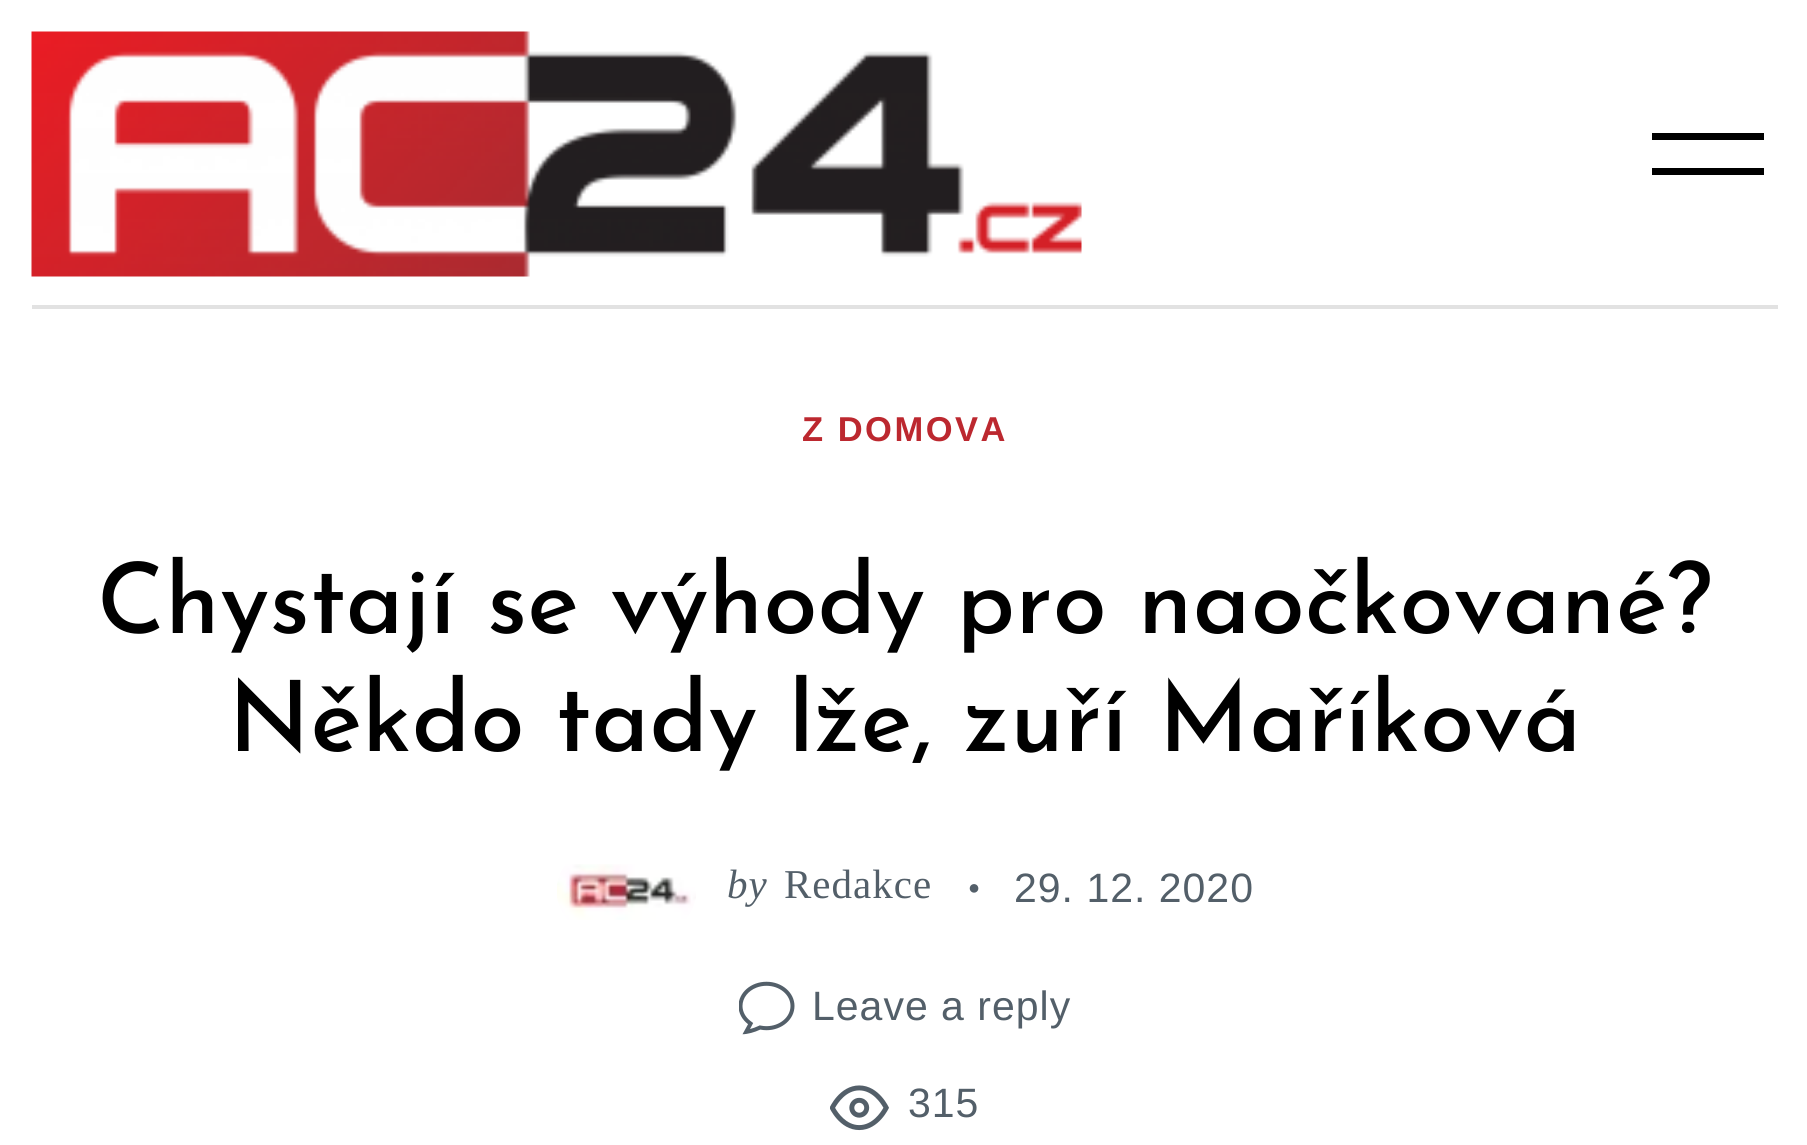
import math
import cairo

surface = cairo.ImageSurface(cairo.FORMAT_RGB24, 1807, 1145)
ctx = cairo.Context(surface)
options = cairo.FontOptions()
options.set_hint_metrics(cairo.HINT_METRICS_OFF)
options.set_hint_style(cairo.HINT_STYLE_NONE)
ctx.set_font_options(options)
ctx.set_miter_limit(4)


def set_color(code):
    ctx.set_source_rgb(*(v / 255 for v in bytes.fromhex(code[-6:])))


def draw_text(x, y, s, family, size, color, bold=False, italic=False):
    ctx.select_font_face(family, cairo.FONT_SLANT_ITALIC if italic else cairo.FONT_SLANT_NORMAL, cairo.FONT_WEIGHT_BOLD if bold else cairo.FONT_WEIGHT_NORMAL)
    ctx.set_font_size(size)
    set_color(color)
    ctx.move_to(x, y)
    ctx.show_text(s)


def draw_spaced(x, y, s, letter, word):
    ctx.move_to(x, y)
    for ch in s:
        ctx.show_text(ch)
        ctx.rel_move_to(letter + word * (ch == ' '), 0)


def fill_rect(x, y, w, h, color):
    set_color(color)
    ctx.rectangle(x, y, w, h)
    ctx.fill()


def draw_image(path, x, y, w, h):
    ctx.save()
    ctx.set_source_surface(cairo.ImageSurface.create_from_png(path), x, y)
    ctx.rectangle(x, y, w, h)
    ctx.fill()
    ctx.restore()


set_color("#ffffff")
ctx.paint()
draw_image("assets/img1.png", 31, 31, 1051, 246)
fill_rect(1652, 133, 112, 7, "#000000")
fill_rect(1652, 168, 112, 7, "#000000")
fill_rect(32, 305, 1746, 4, "#e2e2e2")
ctx.select_font_face("Liberation Sans", cairo.FONT_SLANT_NORMAL, cairo.FONT_WEIGHT_BOLD)
ctx.set_font_size(34.5)
set_color("#bc282f")
draw_spaced(802, 441, "Z DOMOVA", 2.5, 0)
draw_text(97, 633, "Chystají se výhody pro naočkované?", "Josefin Sans Thin", 98, "#000000")
draw_text(228, 751, "Někdo tady lže, zuří Maříková", "Josefin Sans Thin", 98, "#000000")
draw_image("assets/img2.png", 557, 864, 139, 56)
ctx.select_font_face("Liberation Serif", cairo.FONT_SLANT_ITALIC)
ctx.set_font_size(41)
set_color("#535f69")
draw_spaced(727, 898, "by", 1, 0)
ctx.select_font_face("Liberation Serif")
draw_spaced(784, 898, "Redakce", 1, 0)
ctx.select_font_face("Liberation Sans")
ctx.set_font_size(20)
draw_spaced(968, 894, "●", 1, 0)
ctx.set_font_size(41)
draw_spaced(1014, 902, "29. 12. 2020", 1, 0)
draw_image("assets/img3.png", 739, 981, 56, 54)
draw_spaced(812, 1020, "Leave a reply", 1, 0)
draw_image("assets/img4.png", 830, 1085, 59, 46)
draw_spaced(908, 1117, "315", 1, 0)
surface.write_to_png("output.png")
